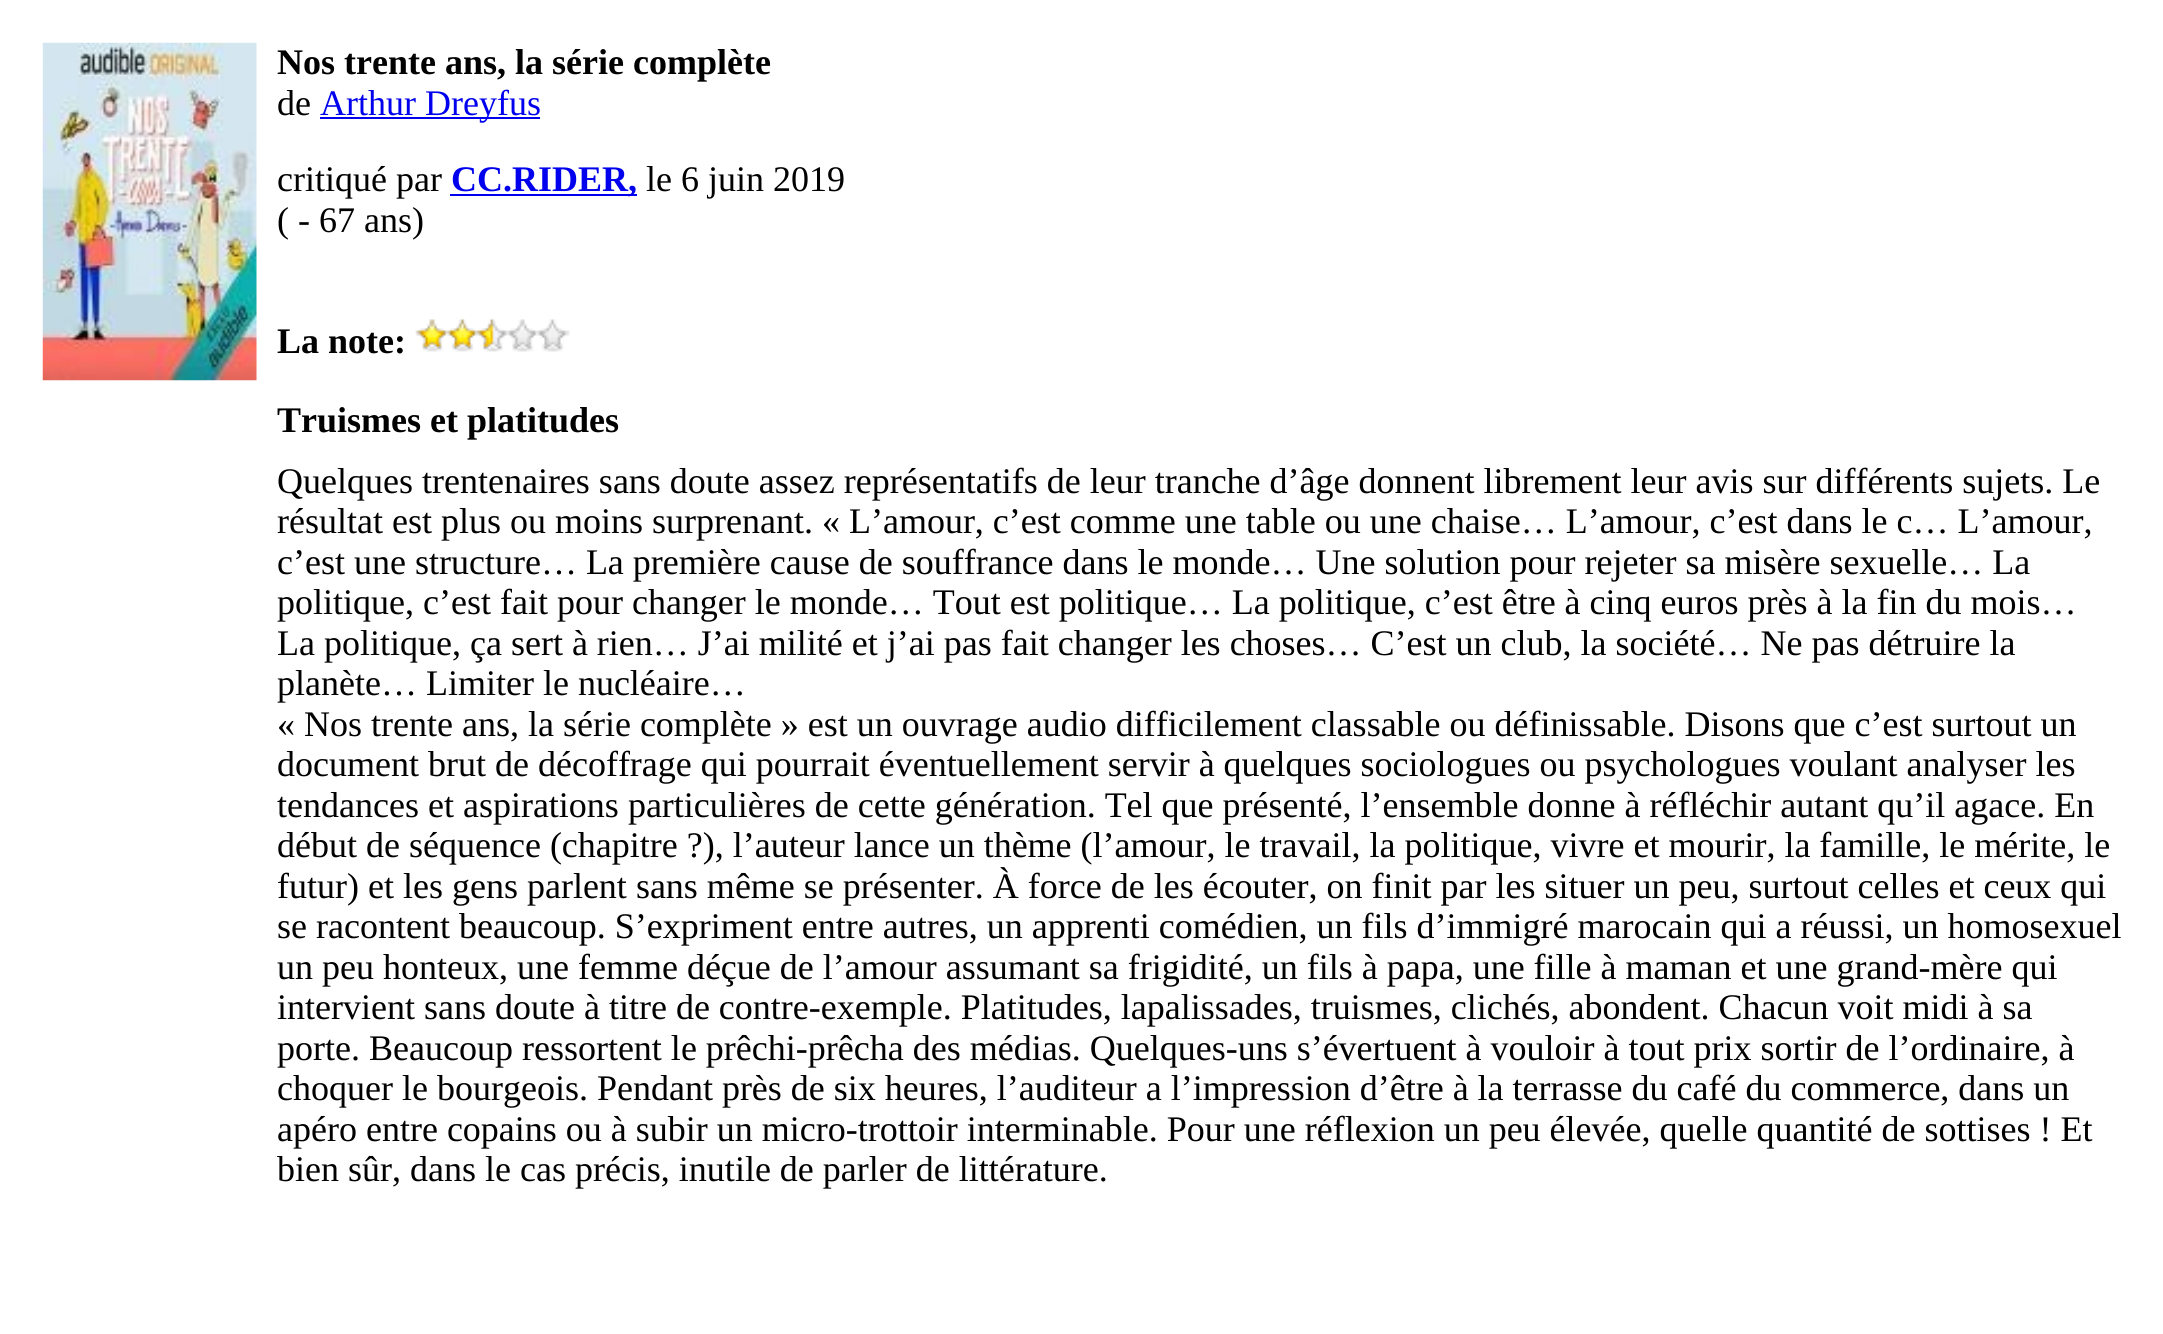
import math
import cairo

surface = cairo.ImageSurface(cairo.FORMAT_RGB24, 2163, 1334)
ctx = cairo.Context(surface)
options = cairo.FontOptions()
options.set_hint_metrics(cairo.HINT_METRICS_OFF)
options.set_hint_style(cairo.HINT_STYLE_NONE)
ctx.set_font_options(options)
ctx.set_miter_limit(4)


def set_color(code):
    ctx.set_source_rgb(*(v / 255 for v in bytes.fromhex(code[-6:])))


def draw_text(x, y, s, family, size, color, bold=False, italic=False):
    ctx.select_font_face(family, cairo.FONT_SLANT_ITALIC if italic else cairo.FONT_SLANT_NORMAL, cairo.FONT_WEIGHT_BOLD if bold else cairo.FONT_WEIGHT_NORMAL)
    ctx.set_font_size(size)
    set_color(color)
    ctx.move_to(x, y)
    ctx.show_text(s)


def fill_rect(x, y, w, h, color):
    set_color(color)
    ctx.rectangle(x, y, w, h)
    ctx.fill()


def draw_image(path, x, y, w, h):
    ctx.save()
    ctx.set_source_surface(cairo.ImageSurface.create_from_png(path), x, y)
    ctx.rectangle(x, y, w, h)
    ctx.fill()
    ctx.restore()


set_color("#ffffff")
ctx.paint()
draw_image("assets/img1.png", 42, 42, 215, 339)
draw_text(277, 74, "Nos trente ans, la série complète", "Liberation Serif", 36, "#000000", bold=True)
draw_text(277, 115, "de", "Liberation Serif", 36, "#000000")
fill_rect(320, 117, 220, 2, "#0000ee")
draw_text(320, 115, "Arthur Dreyfus", "Liberation Serif", 36, "#0000ee")
draw_text(277, 191, "critiqué par", "Liberation Serif", 36, "#000000")
fill_rect(450, 194, 187, 2, "#0000ee")
draw_text(451, 191, "CC.RIDER,", "Liberation Serif", 36, "#0000ee", bold=True)
draw_text(646, 191, "le 6 juin 2019", "Liberation Serif", 36, "#000000")
draw_text(277, 232, "( - 67 ans)", "Liberation Serif", 36, "#000000")
draw_text(277, 353, "La note:", "Liberation Serif", 36, "#000000", bold=True)
draw_image("assets/img2.png", 415, 319, 155, 33)
draw_text(277, 432, "Truismes et platitudes", "Liberation Serif", 36, "#000000", bold=True)
draw_text(277, 493, "Quelques trentenaires sans doute assez représentatifs de leur tranche d’âge donnent librement leur avis sur différents sujets. Le", "Liberation Serif", 36, "#000000")
draw_text(277, 533, "résultat est plus ou moins surprenant. « L’amour, c’est comme une table ou une chaise… L’amour, c’est dans le c… L’amour,", "Liberation Serif", 36, "#000000")
draw_text(277, 574, "c’est une structure… La première cause de souffrance dans le monde… Une solution pour rejeter sa misère sexuelle… La", "Liberation Serif", 36, "#000000")
draw_text(277, 614, "politique, c’est fait pour changer le monde… Tout est politique… La politique, c’est être à cinq euros près à la fin du mois…", "Liberation Serif", 36, "#000000")
draw_text(277, 655, "La politique, ça sert à rien… J’ai milité et j’ai pas fait changer les choses… C’est un club, la société… Ne pas détruire la", "Liberation Serif", 36, "#000000")
draw_text(277, 695, "planète… Limiter le nucléaire…", "Liberation Serif", 36, "#000000")
draw_text(277, 736, "« Nos trente ans, la série complète » est un ouvrage audio difficilement classable ou définissable. Disons que c’est surtout un", "Liberation Serif", 36, "#000000")
draw_text(277, 776, "document brut de décoffrage qui pourrait éventuellement servir à quelques sociologues ou psychologues voulant analyser les", "Liberation Serif", 36, "#000000")
draw_text(277, 817, "tendances et aspirations particulières de cette génération. Tel que présenté, l’ensemble donne à réfléchir autant qu’il agace. En", "Liberation Serif", 36, "#000000")
draw_text(277, 857, "début de séquence (chapitre ?), l’auteur lance un thème (l’amour, le travail, la politique, vivre et mourir, la famille, le mérite, le", "Liberation Serif", 36, "#000000")
draw_text(277, 898, "futur) et les gens parlent sans même se présenter. À force de les écouter, on finit par les situer un peu, surtout celles et ceux qui", "Liberation Serif", 36, "#000000")
draw_text(277, 938, "se racontent beaucoup. S’expriment entre autres, un apprenti comédien, un fils d’immigré marocain qui a réussi, un homosexuel", "Liberation Serif", 36, "#000000")
draw_text(277, 979, "un peu honteux, une femme déçue de l’amour assumant sa frigidité, un fils à papa, une fille à maman et une grand-mère qui", "Liberation Serif", 36, "#000000")
draw_text(277, 1019, "intervient sans doute à titre de contre-exemple. Platitudes, lapalissades, truismes, clichés, abondent. Chacun voit midi à sa", "Liberation Serif", 36, "#000000")
draw_text(277, 1060, "porte. Beaucoup ressortent le prêchi-prêcha des médias. Quelques-uns s’évertuent à vouloir à tout prix sortir de l’ordinaire, à", "Liberation Serif", 36, "#000000")
draw_text(277, 1100, "choquer le bourgeois. Pendant près de six heures, l’auditeur a l’impression d’être à la terrasse du café du commerce, dans un", "Liberation Serif", 36, "#000000")
draw_text(277, 1141, "apéro entre copains ou à subir un micro-trottoir interminable. Pour une réflexion un peu élevée, quelle quantité de sottises ! Et", "Liberation Serif", 36, "#000000")
draw_text(277, 1181, "bien sûr, dans le cas précis, inutile de parler de littérature.", "Liberation Serif", 36, "#000000")
surface.write_to_png("output.png")
